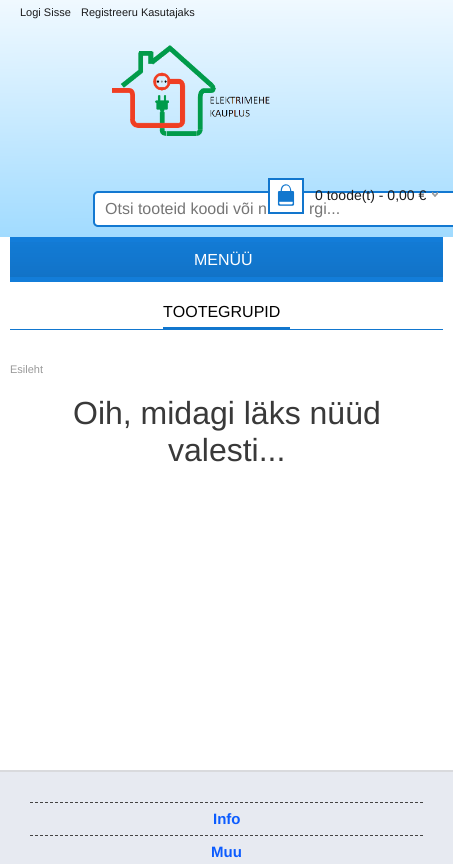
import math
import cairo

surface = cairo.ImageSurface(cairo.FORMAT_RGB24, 453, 864)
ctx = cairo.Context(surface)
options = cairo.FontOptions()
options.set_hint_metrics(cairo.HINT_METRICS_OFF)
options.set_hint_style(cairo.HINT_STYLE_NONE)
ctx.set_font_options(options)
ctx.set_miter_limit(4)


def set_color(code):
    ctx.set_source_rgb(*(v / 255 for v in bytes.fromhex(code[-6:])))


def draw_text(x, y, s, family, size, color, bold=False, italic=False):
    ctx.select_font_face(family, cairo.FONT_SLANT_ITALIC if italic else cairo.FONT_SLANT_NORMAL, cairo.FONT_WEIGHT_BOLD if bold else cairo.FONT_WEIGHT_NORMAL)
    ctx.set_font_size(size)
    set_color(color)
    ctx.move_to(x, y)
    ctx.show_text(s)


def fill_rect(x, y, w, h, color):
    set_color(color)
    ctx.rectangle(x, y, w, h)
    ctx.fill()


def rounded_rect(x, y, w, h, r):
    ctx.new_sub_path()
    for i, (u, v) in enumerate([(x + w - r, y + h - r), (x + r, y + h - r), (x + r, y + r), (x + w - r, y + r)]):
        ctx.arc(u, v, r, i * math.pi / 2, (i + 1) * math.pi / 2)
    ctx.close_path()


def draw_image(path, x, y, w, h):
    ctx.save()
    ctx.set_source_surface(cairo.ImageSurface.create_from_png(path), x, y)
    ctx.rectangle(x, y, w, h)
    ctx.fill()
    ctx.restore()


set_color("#ffffff")
ctx.paint()
gradient = cairo.LinearGradient(226, 0, 227, 237)
gradient.add_color_stop_rgba(0, 0.941, 0.976, 1, 1)
gradient.add_color_stop_rgba(0.47, 0.796, 0.922, 1, 1)
gradient.add_color_stop_rgba(1, 0.631, 0.859, 1, 1)
ctx.set_source(gradient)
ctx.rectangle(0, 0, 453, 237)
ctx.fill()
draw_text(20, 16, "Logi Sisse", "Liberation Sans", 11, "#1b1b1c")
draw_text(81, 16, "Registreeru Kasutajaks", "Liberation Sans", 11, "#1b1b1c")
draw_image("assets/img1.png", 112, 45, 158, 91)
set_color("#ffffff")
rounded_rect(94, 192, 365, 34, 4)
ctx.fill_preserve()
set_color("#1278d1")
ctx.stroke()
fill_rect(277, 184, 18, 22, "#1277ce")
ctx.rectangle(269, 179, 34, 34)
set_color("#1276cd")
ctx.stroke()
draw_image("assets/img2.png", 270, 180, 32, 32)
draw_image("assets/img3.png", 432, 192, 6, 5)
draw_text(315, 200, "0 toode(t) - 0,00 €", "Liberation Sans", 14, "#1b1b1c")
draw_text(105, 214, "Otsi tooteid koodi või n", "Liberation Sans", 16, "#757575")
draw_text(309, 214, "rgi...", "Liberation Sans", 16, "#757575")
fill_rect(10, 237, 433, 45, "#137dd9")
draw_image("assets/img4.png", 10, 242, 433, 35)
draw_text(194, 265, "MENÜÜ", "Liberation Sans", 16, "#ffffff")
fill_rect(10, 329, 433, 1, "#1277cf")
fill_rect(163, 327, 127, 2, "#1176cd")
draw_text(163, 317, "TOOTEGRUPID", "Liberation Sans", 16, "#000000")
draw_text(10, 373, "Esileht", "Liberation Sans", 11, "#999999")
draw_text(73, 424, "Oih, midagi läks nüüd", "Liberation Sans", 32, "#393939")
draw_text(168, 461, "valesti...", "Liberation Sans", 32, "#393939")
fill_rect(0, 772, 453, 92, "#e7eaf1")
fill_rect(0, 770, 453, 2, "#d9dadd")
ctx.new_path()
ctx.move_to(30, 802.5)
ctx.line_to(423, 802.5)
set_color("#444444")
ctx.set_line_width(1)
ctx.set_dash([3, 2])
ctx.stroke()
draw_text(213, 824, "Info", "Liberation Sans", 15, "#0c5cff", bold=True)
ctx.new_path()
ctx.move_to(30, 835.5)
ctx.line_to(423, 835.5)
set_color("#444444")
ctx.stroke()
draw_text(211, 857, "Muu", "Liberation Sans", 15, "#0c5cff", bold=True)
surface.write_to_png("output.png")
